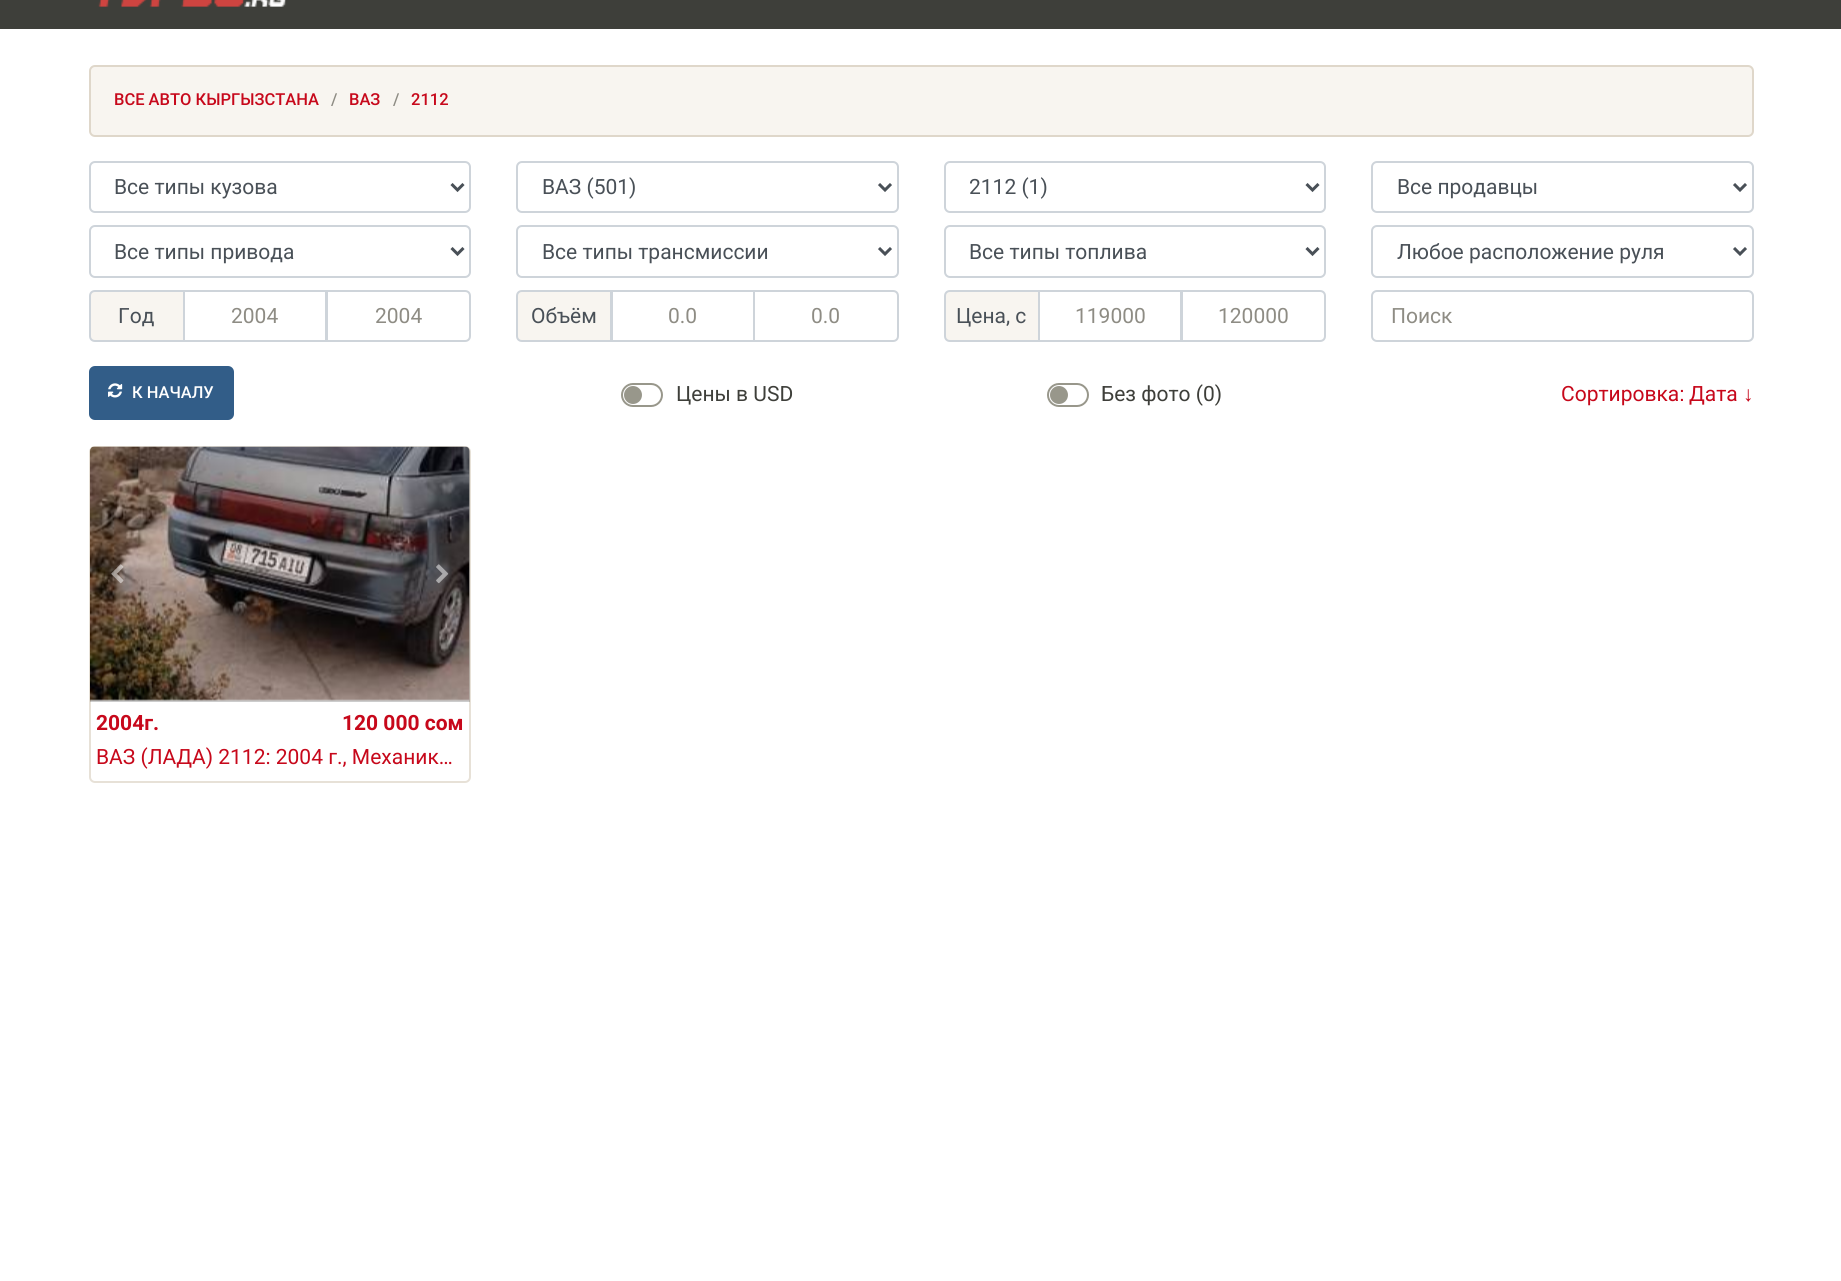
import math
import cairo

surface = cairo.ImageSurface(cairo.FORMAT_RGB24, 1841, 1281)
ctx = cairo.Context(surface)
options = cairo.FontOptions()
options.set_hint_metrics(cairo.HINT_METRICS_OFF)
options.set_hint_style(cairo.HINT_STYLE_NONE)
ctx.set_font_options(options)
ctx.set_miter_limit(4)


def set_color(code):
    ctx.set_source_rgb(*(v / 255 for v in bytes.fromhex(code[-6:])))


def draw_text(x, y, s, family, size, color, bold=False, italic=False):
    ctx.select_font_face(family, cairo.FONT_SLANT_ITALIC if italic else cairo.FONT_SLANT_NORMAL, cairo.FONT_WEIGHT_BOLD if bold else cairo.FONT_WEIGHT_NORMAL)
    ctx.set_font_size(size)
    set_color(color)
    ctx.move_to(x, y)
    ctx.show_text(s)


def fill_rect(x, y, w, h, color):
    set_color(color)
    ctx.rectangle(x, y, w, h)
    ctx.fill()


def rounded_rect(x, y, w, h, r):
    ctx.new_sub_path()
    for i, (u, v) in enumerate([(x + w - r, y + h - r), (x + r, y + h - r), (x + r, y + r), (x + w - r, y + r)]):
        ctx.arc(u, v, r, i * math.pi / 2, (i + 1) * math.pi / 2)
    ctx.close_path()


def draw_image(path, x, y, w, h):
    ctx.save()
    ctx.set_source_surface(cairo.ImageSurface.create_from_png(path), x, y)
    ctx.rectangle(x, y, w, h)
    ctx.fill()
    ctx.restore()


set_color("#ffffff")
ctx.paint()
fill_rect(0, 0, 1841, 29, "#3e3f3a")
draw_image("assets/img1.png", 98, 0, 188, 7)
set_color("#f8f5f0")
rounded_rect(90, 66, 1663, 70, 5)
ctx.fill_preserve()
set_color("#dfd7ca")
ctx.stroke()
draw_text(114, 105, "ВСЕ АВТО КЫРГЫЗСТАНА", "Roboto Medium", 16.5, "#c7081b")
draw_text(331, 105, "/", "Roboto Medium", 16.5, "#8e8c84")
draw_text(349, 105, "ВАЗ", "Roboto Medium", 16.5, "#c7081b")
draw_text(393, 105, "/", "Roboto Medium", 16.5, "#8e8c84")
draw_text(411, 105, "2112", "Roboto Medium", 16.5, "#c7081b")
rounded_rect(90, 162, 380, 50, 5)
set_color("#ced4da")
ctx.stroke()
ctx.new_path()
ctx.move_to(451.5, 184)
ctx.line_to(457.5, 190)
ctx.line_to(463.5, 184)
set_color("#495057")
ctx.set_line_width(3)
ctx.stroke()
draw_text(114, 194, "Все типы кузова", "Roboto", 21, "#495057")
rounded_rect(517, 162, 381, 50, 5)
set_color("#ced4da")
ctx.set_line_width(2)
ctx.stroke()
ctx.new_path()
ctx.move_to(879, 184)
ctx.line_to(885, 190)
ctx.line_to(891, 184)
set_color("#495057")
ctx.set_line_width(3)
ctx.stroke()
draw_text(542, 194, "ВАЗ (501)", "Roboto", 21, "#495057")
rounded_rect(945, 162, 380, 50, 5)
set_color("#ced4da")
ctx.set_line_width(2)
ctx.stroke()
ctx.new_path()
ctx.move_to(1306.5, 184)
ctx.line_to(1312.5, 190)
ctx.line_to(1318.5, 184)
set_color("#495057")
ctx.set_line_width(3)
ctx.stroke()
draw_text(969, 194, "2112 (1)", "Roboto", 21, "#495057")
rounded_rect(1372, 162, 381, 50, 5)
set_color("#ced4da")
ctx.set_line_width(2)
ctx.stroke()
ctx.new_path()
ctx.move_to(1734, 184)
ctx.line_to(1740, 190)
ctx.line_to(1746, 184)
set_color("#495057")
ctx.set_line_width(3)
ctx.stroke()
draw_text(1397, 194, "Все продавцы", "Roboto", 21, "#495057")
rounded_rect(90, 226, 380, 51, 5)
set_color("#ced4da")
ctx.set_line_width(2)
ctx.stroke()
ctx.new_path()
ctx.move_to(451.5, 248)
ctx.line_to(457.5, 254)
ctx.line_to(463.5, 248)
set_color("#495057")
ctx.set_line_width(3)
ctx.stroke()
draw_text(114, 259, "Все типы привода", "Roboto", 21, "#495057")
rounded_rect(517, 226, 381, 51, 5)
set_color("#ced4da")
ctx.set_line_width(2)
ctx.stroke()
ctx.new_path()
ctx.move_to(879, 248)
ctx.line_to(885, 254)
ctx.line_to(891, 248)
set_color("#495057")
ctx.set_line_width(3)
ctx.stroke()
draw_text(542, 259, "Все типы трансмиссии", "Roboto", 21, "#495057")
rounded_rect(945, 226, 380, 51, 5)
set_color("#ced4da")
ctx.set_line_width(2)
ctx.stroke()
ctx.new_path()
ctx.move_to(1306.5, 248)
ctx.line_to(1312.5, 254)
ctx.line_to(1318.5, 248)
set_color("#495057")
ctx.set_line_width(3)
ctx.stroke()
draw_text(969, 259, "Все типы топлива", "Roboto", 21, "#495057")
rounded_rect(1372, 226, 381, 51, 5)
set_color("#ced4da")
ctx.set_line_width(2)
ctx.stroke()
ctx.new_path()
ctx.move_to(1734, 248)
ctx.line_to(1740, 254)
ctx.line_to(1746, 248)
set_color("#495057")
ctx.set_line_width(3)
ctx.stroke()
draw_text(1397, 259, "Любое расположение руля", "Roboto", 21, "#495057")
set_color("#f8f5f0")
ctx.new_path()
ctx.move_to(95, 291)
ctx.line_to(184, 291)
ctx.line_to(184, 341)
ctx.line_to(95, 341)
ctx.curve_to(92, 341, 90, 339, 90, 336)
ctx.line_to(90, 296)
ctx.curve_to(90, 293, 92, 291, 95, 291)
ctx.close_path()
ctx.fill_preserve()
set_color("#ced4da")
ctx.set_line_width(2)
ctx.stroke()
draw_text(118, 323, "Год", "Roboto", 21, "#495057")
ctx.rectangle(184, 291, 142, 50)
set_color("#ced4da")
ctx.stroke()
draw_text(231, 323, "2004", "Roboto", 21, "#8e8c84")
ctx.new_path()
ctx.move_to(327, 291)
ctx.line_to(465, 291)
ctx.curve_to(468, 291, 470, 293, 470, 296)
ctx.line_to(470, 336)
ctx.curve_to(470, 339, 468, 341, 465, 341)
ctx.line_to(327, 341)
ctx.close_path()
set_color("#ced4da")
ctx.stroke()
draw_text(375, 323, "2004", "Roboto", 21, "#8e8c84")
set_color("#f8f5f0")
ctx.new_path()
ctx.move_to(522, 291)
ctx.line_to(611, 291)
ctx.line_to(611, 341)
ctx.line_to(522, 341)
ctx.curve_to(519, 341, 517, 339, 517, 336)
ctx.line_to(517, 296)
ctx.curve_to(517, 293, 519, 291, 522, 291)
ctx.close_path()
ctx.fill_preserve()
set_color("#ced4da")
ctx.stroke()
draw_text(531, 323, "Объём", "Roboto", 21, "#495057")
ctx.rectangle(612, 291, 142, 50)
set_color("#ced4da")
ctx.stroke()
draw_text(668, 323, "0.0", "Roboto", 21, "#8e8c84")
ctx.new_path()
ctx.move_to(754, 291)
ctx.line_to(893, 291)
ctx.curve_to(896, 291, 898, 293, 898, 296)
ctx.line_to(898, 336)
ctx.curve_to(898, 339, 896, 341, 893, 341)
ctx.line_to(754, 341)
ctx.close_path()
set_color("#ced4da")
ctx.stroke()
draw_text(811, 323, "0.0", "Roboto", 21, "#8e8c84")
set_color("#f8f5f0")
ctx.new_path()
ctx.move_to(950, 291)
ctx.line_to(1039, 291)
ctx.line_to(1039, 341)
ctx.line_to(950, 341)
ctx.curve_to(947, 341, 945, 339, 945, 336)
ctx.line_to(945, 296)
ctx.curve_to(945, 293, 947, 291, 950, 291)
ctx.close_path()
ctx.fill_preserve()
set_color("#ced4da")
ctx.stroke()
draw_text(956, 323, "Цена, с", "Roboto", 21, "#495057")
ctx.rectangle(1039, 291, 142, 50)
set_color("#ced4da")
ctx.stroke()
draw_text(1075, 323, "119000", "Roboto", 21, "#8e8c84")
ctx.new_path()
ctx.move_to(1182, 291)
ctx.line_to(1320, 291)
ctx.curve_to(1323, 291, 1325, 293, 1325, 296)
ctx.line_to(1325, 336)
ctx.curve_to(1325, 339, 1323, 341, 1320, 341)
ctx.line_to(1182, 341)
ctx.close_path()
set_color("#ced4da")
ctx.stroke()
draw_text(1218, 323, "120000", "Roboto", 21, "#8e8c84")
rounded_rect(1372, 291, 381, 50, 5)
set_color("#ced4da")
ctx.stroke()
draw_text(1391, 323, "Поиск", "Roboto", 21, "#8e8c84")
set_color("#325d88")
rounded_rect(90, 367, 143, 52, 5)
ctx.fill_preserve()
ctx.stroke()
draw_image("assets/img2.png", 108, 383, 15, 15)
draw_text(132, 398, "К НАЧАЛУ", "Roboto Medium", 16.5, "#ffffff")
rounded_rect(622, 384, 40, 22, 11)
set_color("#98978b")
ctx.stroke()
draw_text(676, 401, "Цены в USD", "Roboto", 21, "#3e3f3a")
set_color("#98978b")
ctx.new_path()
ctx.arc(633, 395, 9, 0, 2 * math.pi)
ctx.fill()
rounded_rect(1048, 384, 40, 22, 11)
ctx.stroke()
draw_text(1101, 401, "Без фото (0)", "Roboto", 21, "#3e3f3a")
set_color("#98978b")
ctx.new_path()
ctx.arc(1059, 395, 9, 0, 2 * math.pi)
ctx.fill()
draw_text(1561, 401, "Сортировка", "Roboto", 21, "#c7081b")
draw_text(1679, 401, ":", "Liberation Sans", 21, "#c7081b")
draw_text(1689, 401, "Дата", "Roboto", 21, "#c7081b")
draw_text(1743, 401, "↓", "Liberation Sans", 21, "#c7081b")
rounded_rect(90, 447, 380, 335, 5)
set_color("#e7e1d7")
ctx.stroke()
ctx.set_source_rgba(0, 0, 0, 0.2)
ctx.new_path()
ctx.move_to(95, 447)
ctx.line_to(465, 447)
ctx.curve_to(468, 447, 470, 449, 470, 452)
ctx.line_to(470, 702)
ctx.line_to(90, 702)
ctx.line_to(90, 452)
ctx.curve_to(90, 449, 92, 447, 95, 447)
ctx.close_path()
ctx.fill()
draw_image("assets/img3.png", 90, 446, 380, 255)
draw_image("assets/img4.png", 111, 564, 13, 20)
draw_image("assets/img5.png", 436, 564, 13, 20)
draw_text(96, 730, "2004г.", "Roboto", 21, "#c7081b", bold=True)
draw_text(342, 730, "120 000 сом", "Roboto", 21, "#c7081b", bold=True)
draw_text(96, 764, "ВАЗ (ЛАДА) 2112: 2004 г., Механик…", "Roboto", 21, "#c7081b")
surface.write_to_png("output.png")
